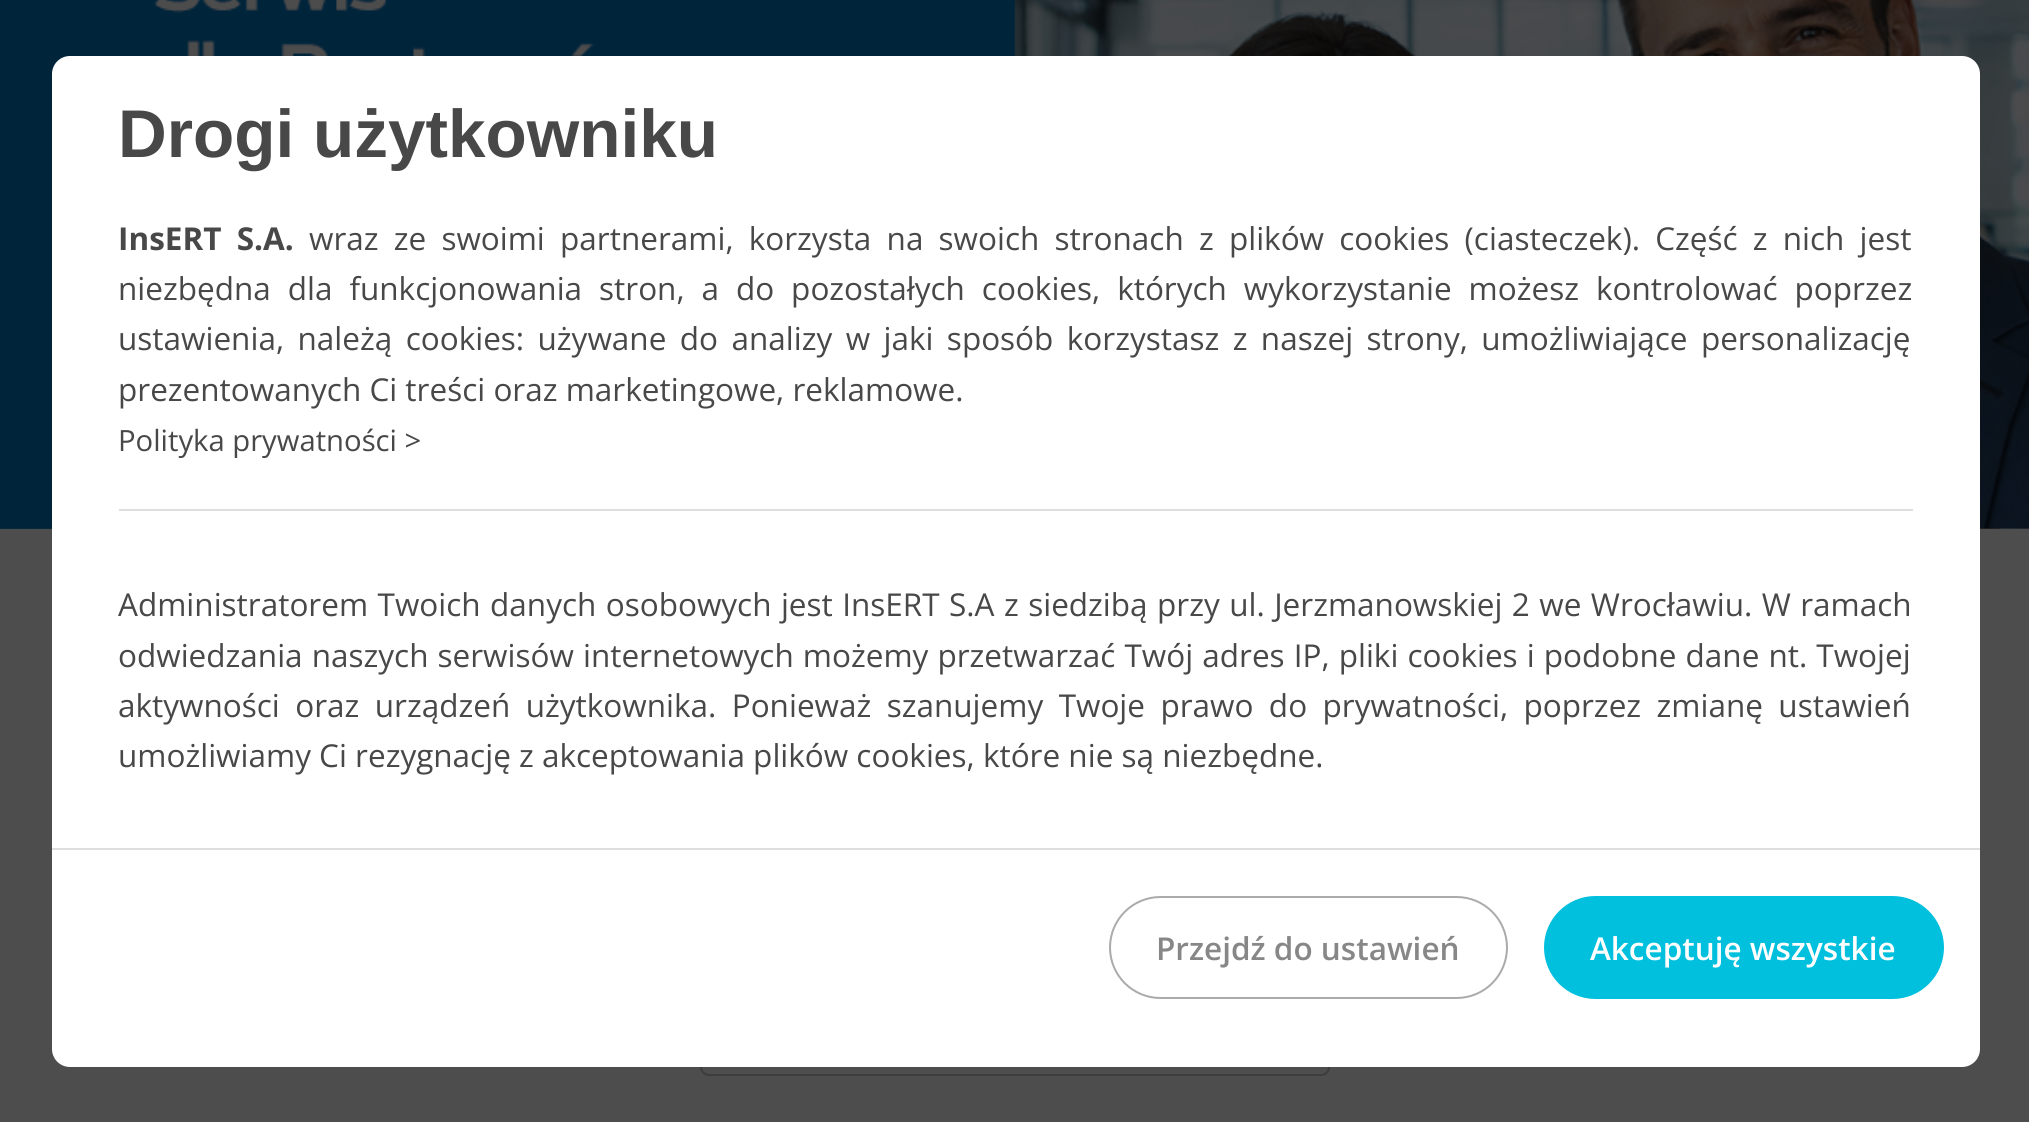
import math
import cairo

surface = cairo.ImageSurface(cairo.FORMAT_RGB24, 2029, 1122)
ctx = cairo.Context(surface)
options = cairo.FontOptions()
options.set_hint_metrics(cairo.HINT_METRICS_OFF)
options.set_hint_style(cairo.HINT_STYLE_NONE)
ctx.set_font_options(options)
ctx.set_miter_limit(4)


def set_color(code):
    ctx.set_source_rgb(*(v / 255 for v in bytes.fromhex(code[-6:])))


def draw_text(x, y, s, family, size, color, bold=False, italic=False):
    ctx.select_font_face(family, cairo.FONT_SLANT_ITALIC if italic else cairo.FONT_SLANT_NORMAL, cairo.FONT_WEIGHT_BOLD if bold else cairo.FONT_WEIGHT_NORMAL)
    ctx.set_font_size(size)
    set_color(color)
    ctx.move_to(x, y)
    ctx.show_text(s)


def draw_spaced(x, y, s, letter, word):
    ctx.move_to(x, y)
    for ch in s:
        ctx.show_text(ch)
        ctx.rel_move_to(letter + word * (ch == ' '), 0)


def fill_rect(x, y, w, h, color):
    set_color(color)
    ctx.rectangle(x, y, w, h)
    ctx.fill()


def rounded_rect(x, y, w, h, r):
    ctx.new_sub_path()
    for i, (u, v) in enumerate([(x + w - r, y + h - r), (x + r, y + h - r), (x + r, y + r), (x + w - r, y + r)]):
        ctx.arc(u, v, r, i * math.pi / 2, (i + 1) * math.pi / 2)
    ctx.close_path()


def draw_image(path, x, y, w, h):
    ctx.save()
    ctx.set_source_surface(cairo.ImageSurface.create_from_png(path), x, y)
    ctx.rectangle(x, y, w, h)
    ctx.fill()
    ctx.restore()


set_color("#4d4d4d")
ctx.paint()
draw_image("assets/img1.png", 0, 528, 2029, 1)
draw_image("assets/img2.png", 0, 0, 2029, 529)
rounded_rect(701, 993, 628, 82, 8)
set_color("#3d3d3d")
ctx.stroke()
set_color("#ffffff")
rounded_rect(52, 56, 1928, 1011, 18)
ctx.fill()
draw_text(118, 157, "Drogi użytkowniku", "Liberation Sans", 67.5, "#484848", bold=True)
fill_rect(119, 509, 1794, 2, "#dedede")
ctx.select_font_face("Open Sans", cairo.FONT_SLANT_NORMAL, cairo.FONT_WEIGHT_BOLD)
ctx.set_font_size(31.5)
set_color("#484848")
draw_spaced(118, 250, "InsERT S.A.", 0, 7)
ctx.select_font_face("Open Sans")
draw_spaced(309, 250, "wraz ze swoimi partnerami, korzysta na swoich stronach z plików cookies (ciasteczek). Część z nich jest", 0, 7)
draw_spaced(118, 300, "niezbędna dla funkcjonowania stron, a do pozostałych cookies, których wykorzystanie możesz kontrolować poprzez", 0, 8.75)
draw_spaced(118, 350, "ustawienia, należą cookies: używane do analizy w jaki sposób korzystasz z naszej strony, umożliwiające personalizację", 0, 5.25)
draw_text(118, 401, "prezentowanych Ci treści oraz marketingowe, reklamowe.", "Open Sans", 31.5, "#484848")
draw_text(118, 451, "Polityka prywatności >", "Open Sans", 29.25, "#484848")
ctx.set_font_size(31.5)
draw_spaced(118, 616, "Administratorem Twoich danych osobowych jest InsERT S.A z siedzibą przy ul. Jerzmanowskiej 2 we Wrocławiu. W ramach", 0, 1.25)
draw_spaced(118, 667, "odwiedzania naszych serwisów internetowych możemy przetwarzać Twój adres IP, pliki cookies i podobne dane nt. Twojej", 0, 0.9)
draw_spaced(118, 717, "aktywności oraz urządzeń użytkownika. Ponieważ szanujemy Twoje prawo do prywatności, poprzez zmianę ustawień", 0, 7.25)
draw_text(118, 767, "umożliwiamy Ci rezygnację z akceptowania plików cookies, które nie są niezbędne.", "Open Sans", 31.5, "#484848")
fill_rect(52, 848, 1928, 2, "#dedede")
rounded_rect(1110, 897, 397, 101, 50.5)
set_color("#ababab")
ctx.stroke()
draw_text(1156, 960, "Przejdź do ustawień", "Open Sans SemiBold", 31.5, "#878787")
set_color("#00c0de")
rounded_rect(1545, 897, 398, 101, 50.5)
ctx.fill_preserve()
ctx.stroke()
draw_text(1590, 960, "Akceptuję wszystkie", "Open Sans SemiBold", 31.5, "#ffffff")
surface.write_to_png("output.png")
